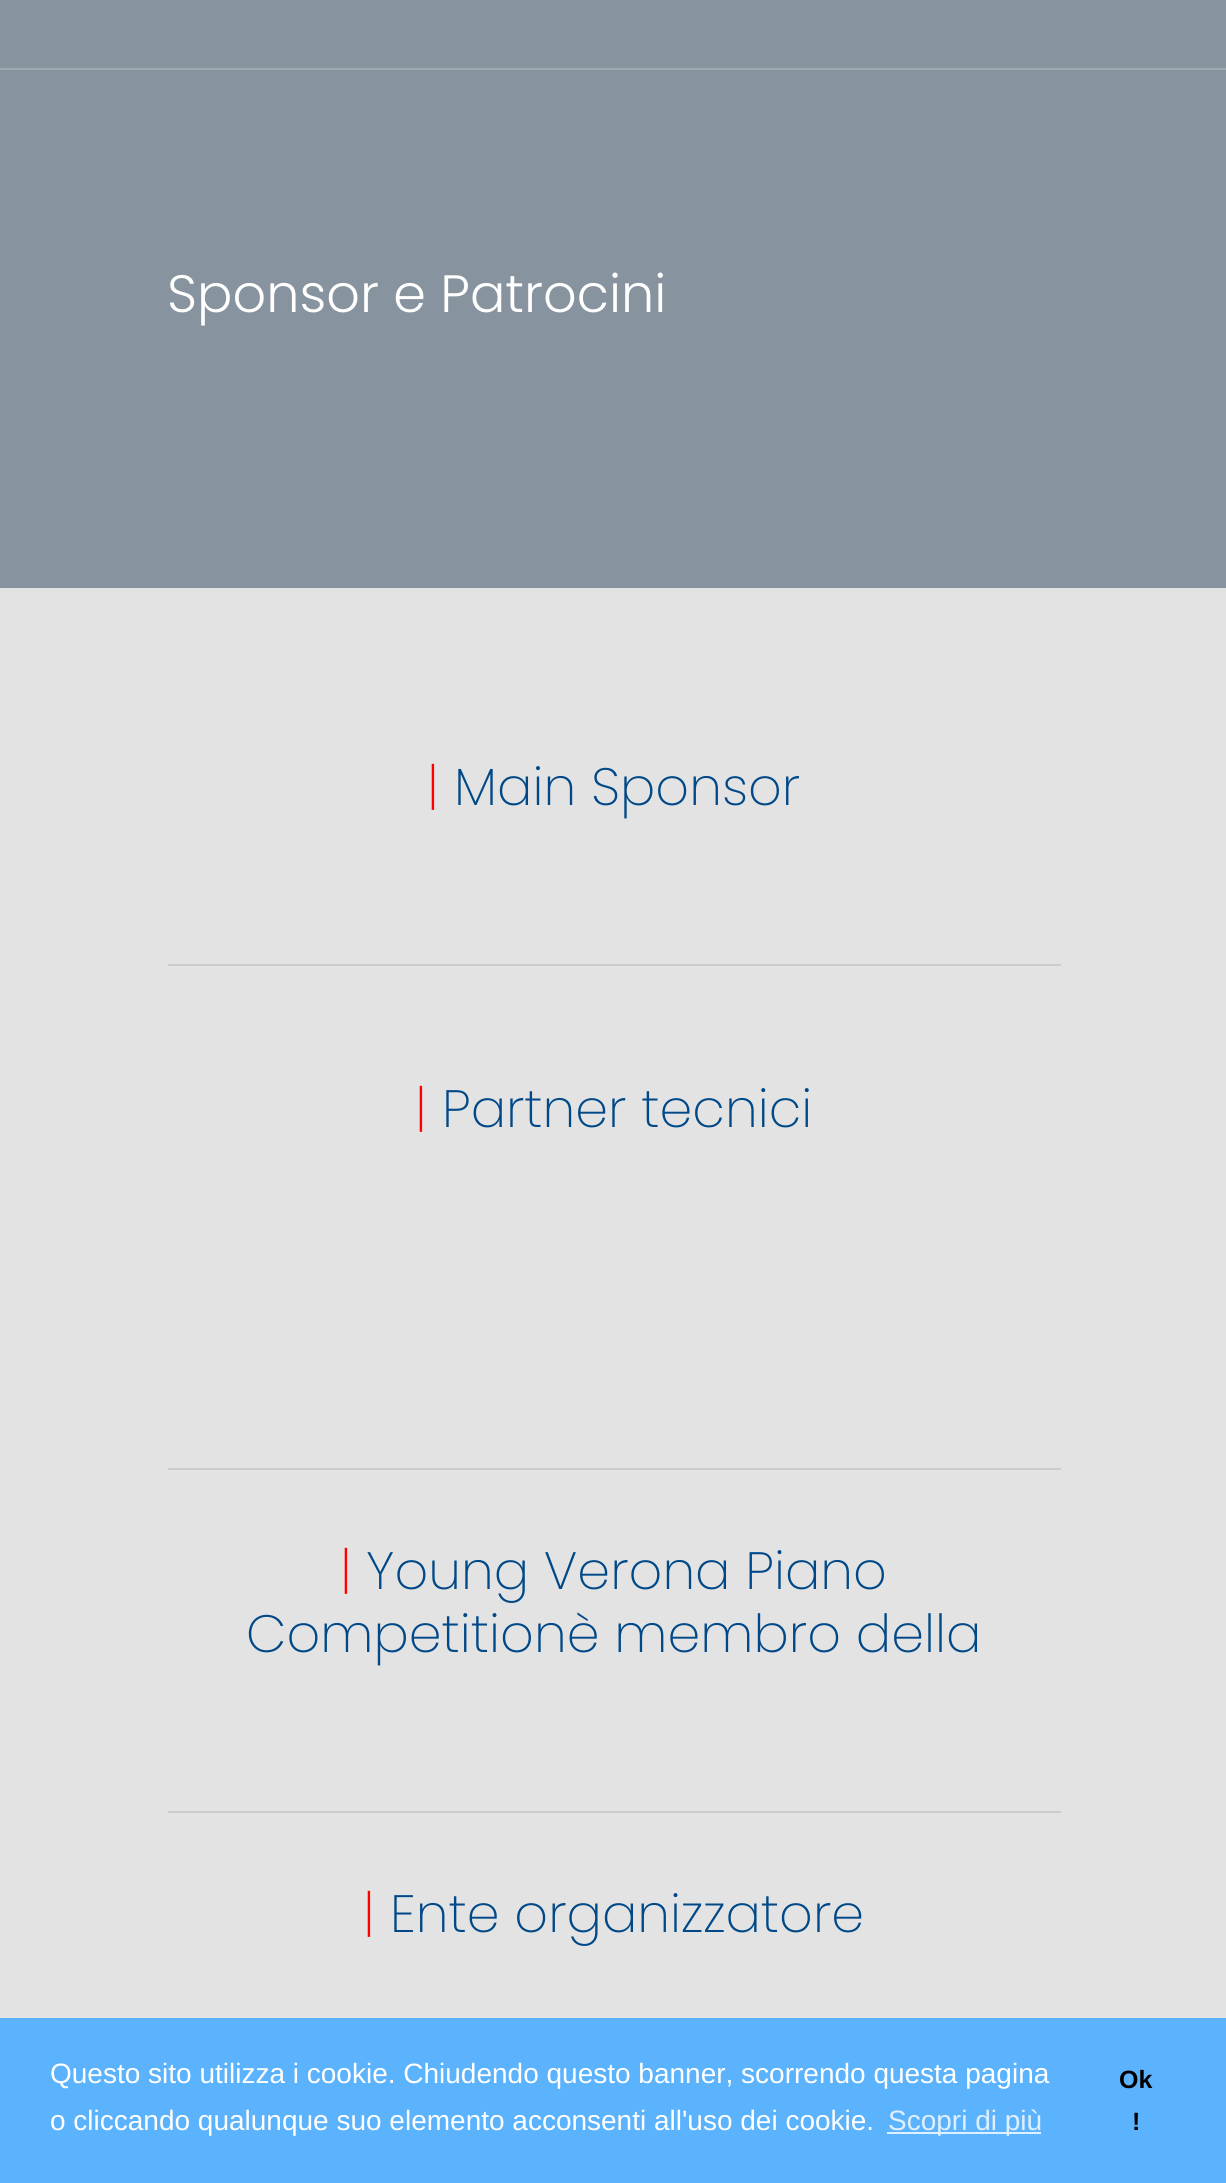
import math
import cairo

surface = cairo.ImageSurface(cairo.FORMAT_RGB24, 1226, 2183)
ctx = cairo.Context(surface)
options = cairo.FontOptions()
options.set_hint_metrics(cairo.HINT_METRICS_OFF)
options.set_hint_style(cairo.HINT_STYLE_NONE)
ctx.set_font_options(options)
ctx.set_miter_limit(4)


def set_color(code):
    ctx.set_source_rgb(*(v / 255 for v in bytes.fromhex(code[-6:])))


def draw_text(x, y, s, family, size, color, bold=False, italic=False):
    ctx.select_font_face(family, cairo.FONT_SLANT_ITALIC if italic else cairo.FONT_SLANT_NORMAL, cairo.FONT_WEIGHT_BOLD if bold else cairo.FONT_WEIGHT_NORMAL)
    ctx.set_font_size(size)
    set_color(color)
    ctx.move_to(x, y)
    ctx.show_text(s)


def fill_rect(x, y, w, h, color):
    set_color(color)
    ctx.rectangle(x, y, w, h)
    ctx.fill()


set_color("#e3e3e3")
ctx.paint()
fill_rect(0, 0, 1226, 588, "#87939e")
fill_rect(0, 68, 1226, 2, "#9fa9b1")
draw_text(167, 312, "Sponsor e Patrocini", "Poppins Light", 52.5, "#ffffff")
draw_text(427, 805, "|", "Poppins ExtraLight", 52.5, "#ff0000")
draw_text(454, 805, "Main Sponsor", "Poppins ExtraLight", 52.5, "#004887")
fill_rect(168, 964, 893, 2, "#cccccc")
draw_text(415, 1127, "|", "Poppins ExtraLight", 52.5, "#ff0000")
draw_text(442, 1127, "Partner tecnici", "Poppins ExtraLight", 52.5, "#004887")
fill_rect(168, 1468, 893, 2, "#cccccc")
draw_text(340, 1589, "|", "Poppins ExtraLight", 52.5, "#ff0000")
draw_text(366, 1589, "Young Verona Piano", "Poppins ExtraLight", 52.5, "#004887")
draw_text(246, 1652, "Competitionè membro della", "Poppins ExtraLight", 52.5, "#004887")
fill_rect(168, 1811, 893, 2, "#cccccc")
draw_text(363, 1932, "|", "Poppins ExtraLight", 52.5, "#ff0000")
draw_text(390, 1932, "Ente organizzatore", "Poppins ExtraLight", 52.5, "#004887")
fill_rect(0, 2018, 1226, 165, "#5bb2fd")
draw_text(50, 2083, "Questo sito utilizza i cookie. Chiudendo questo banner, scorrendo questa pagina", "Liberation Sans", 28, "#ffffff")
draw_text(50, 2130, "o cliccando qualunque suo elemento acconsenti all'uso dei cookie.", "Liberation Sans", 28, "#ffffff")
fill_rect(887, 2132, 154, 2, "#def0ff")
draw_text(888, 2130, "Scopri di più", "Liberation Sans", 28, "#def0ff")
draw_text(1119, 2088, "Ok", "Liberation Sans", 25, "#000000", bold=True)
draw_text(1132, 2130, "!", "Liberation Sans", 25, "#000000", bold=True)
surface.write_to_png("output.png")
